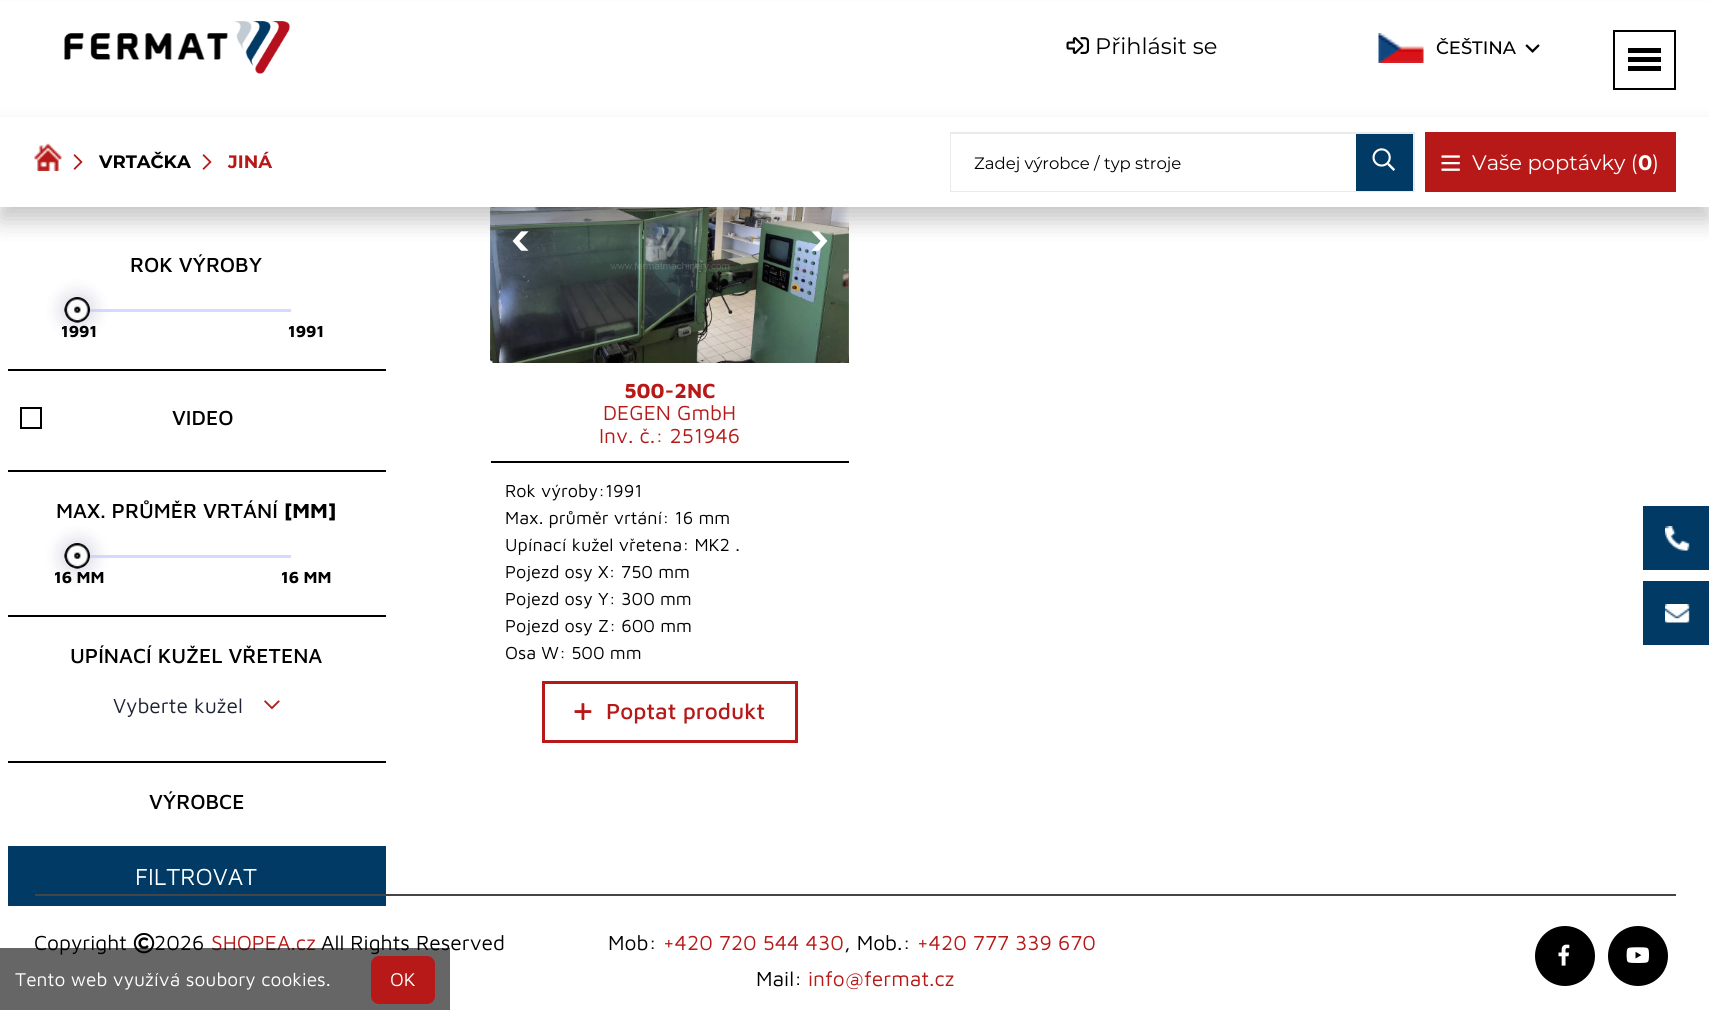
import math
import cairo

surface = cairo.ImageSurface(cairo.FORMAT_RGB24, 1709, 1010)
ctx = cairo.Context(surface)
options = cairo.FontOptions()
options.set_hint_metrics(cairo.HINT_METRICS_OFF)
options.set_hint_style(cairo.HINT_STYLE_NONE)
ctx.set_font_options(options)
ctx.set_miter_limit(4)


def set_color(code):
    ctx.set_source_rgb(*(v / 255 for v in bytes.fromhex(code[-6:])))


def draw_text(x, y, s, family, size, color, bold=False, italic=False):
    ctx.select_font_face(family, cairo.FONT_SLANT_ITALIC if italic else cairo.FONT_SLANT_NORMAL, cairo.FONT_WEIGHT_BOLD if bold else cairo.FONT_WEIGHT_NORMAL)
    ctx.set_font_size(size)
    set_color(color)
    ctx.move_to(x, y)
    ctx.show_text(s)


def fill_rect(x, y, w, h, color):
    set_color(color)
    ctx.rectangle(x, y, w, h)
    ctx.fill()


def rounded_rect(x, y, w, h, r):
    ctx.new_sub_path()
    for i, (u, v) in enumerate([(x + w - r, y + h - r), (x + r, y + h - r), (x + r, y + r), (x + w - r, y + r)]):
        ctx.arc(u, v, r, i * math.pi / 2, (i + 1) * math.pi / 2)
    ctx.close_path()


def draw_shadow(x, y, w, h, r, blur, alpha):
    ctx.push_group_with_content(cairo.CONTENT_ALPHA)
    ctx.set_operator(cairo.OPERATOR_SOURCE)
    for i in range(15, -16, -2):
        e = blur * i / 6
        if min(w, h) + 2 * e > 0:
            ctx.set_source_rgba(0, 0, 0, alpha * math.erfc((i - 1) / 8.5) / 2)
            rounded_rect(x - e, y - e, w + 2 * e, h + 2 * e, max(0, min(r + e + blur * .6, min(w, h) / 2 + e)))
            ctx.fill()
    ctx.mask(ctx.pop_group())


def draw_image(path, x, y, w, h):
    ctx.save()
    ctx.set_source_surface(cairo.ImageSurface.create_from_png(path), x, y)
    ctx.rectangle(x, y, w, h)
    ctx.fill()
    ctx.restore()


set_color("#ffffff")
ctx.paint()
draw_image("assets/img13.png", 848, 207, 1, 156)
draw_image("assets/img12.png", 490, 207, 359, 156)
set_color("#191919")
draw_shadow(0, 15, 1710, 207, 0, 11, 0.1)
fill_rect(0, 2, 1709, 205, "#ffffff")
draw_image("assets/img1.png", 64, 21, 226, 53)
draw_image("assets/img2.png", 1066, 37, 23, 17)
draw_text(1095, 54, "Přihlásit se", "Montserrat", 22.5, "#000000")
draw_image("assets/img3.png", 1378, 33, 46, 30)
draw_text(1436, 54, "ČEŠTINA", "Montserrat Medium", 18, "#000000")
draw_image("assets/img4.png", 1525, 44, 15, 9)
ctx.rectangle(1614, 31, 61, 58)
ctx.stroke()
fill_rect(1628, 48, 33, 5, "#000000")
fill_rect(1628, 57, 33, 5, "#000000")
fill_rect(1628, 66, 33, 5, "#000000")
ctx.save()
ctx.set_fill_rule(cairo.FILL_RULE_EVEN_ODD)
ctx.new_path()
ctx.move_to(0, 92)
ctx.line_to(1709, 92)
ctx.line_to(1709, 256)
ctx.line_to(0, 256)
ctx.close_path()
ctx.move_to(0, 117)
ctx.line_to(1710, 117)
ctx.line_to(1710, 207)
ctx.line_to(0, 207)
ctx.close_path()
ctx.clip()
set_color("#000000")
draw_shadow(0, 129, 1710, 90, 0, 12, 0.15)
ctx.restore()
draw_image("assets/img5.png", 34, 143, 28, 28)
draw_image("assets/img6.png", 73, 154, 10, 16)
draw_text(99, 168, "VRTAČKA", "Montserrat", 18, "#000000", bold=True)
draw_image("assets/img6.png", 202, 154, 10, 16)
draw_text(228, 168, "JINÁ", "Montserrat", 18, "#b61918", bold=True)
ctx.rectangle(951, 133, 463, 58)
set_color("#eaeaea")
ctx.stroke()
fill_rect(951, 134, 405, 57, "#ffffff")
draw_text(974, 169, "Zadej výrobce / typ stroje", "Montserrat", 16.5, "#000000")
fill_rect(1356, 134, 57, 57, "#003a65")
draw_image("assets/img7.png", 1372, 148, 23, 23)
fill_rect(1425, 132, 251, 60, "#b61918")
draw_image("assets/img8.png", 1441, 155, 19, 16)
draw_text(1472, 170, "Vaše poptávky (", "Montserrat", 21, "#ffffff")
draw_text(1638, 170, "0", "Montserrat", 21, "#ffffff", bold=True)
draw_text(1652, 170, ")", "Montserrat", 21, "#ffffff")
fill_rect(8, 369, 378, 2, "#000000")
draw_text(130, 272, "ROK VÝROBY", "Maven Pro Medium", 21, "#000000")
fill_rect(65, 309, 226, 3, "#d4d9ff")
set_color("#ccccdf")
draw_shadow(63, 296, 29, 28, 14, 9, 0.49)
draw_image("assets/img9.png", 64, 297, 26, 26)
draw_shadow(63, 296, 29, 28, 14, 9, 0.49)
draw_image("assets/img10.png", 64, 297, 26, 26)
draw_text(61, 337, "1991", "Maven Pro", 16.5, "#000000", bold=True)
draw_text(288, 337, "1991", "Maven Pro", 16.5, "#000000", bold=True)
fill_rect(8, 470, 378, 2, "#000000")
ctx.rectangle(21, 408, 20, 20)
ctx.stroke()
draw_text(172, 425, "VIDEO", "Maven Pro Medium", 21, "#000000")
fill_rect(8, 615, 378, 2, "#000000")
draw_text(56, 518, "MAX. PRŮMĚR VRTÁNÍ", "Maven Pro Medium", 21, "#000000")
draw_text(284, 518, "[MM]", "Maven Pro", 21, "#000000", bold=True)
fill_rect(65, 555, 226, 3, "#d4d9ff")
set_color("#ccccdf")
draw_shadow(63, 542, 29, 28, 14, 9, 0.49)
draw_image("assets/img9.png", 64, 543, 26, 26)
draw_shadow(63, 542, 29, 28, 14, 9, 0.49)
draw_image("assets/img10.png", 64, 543, 26, 26)
draw_text(54, 583, "16 MM", "Maven Pro", 16.5, "#000000", bold=True)
draw_text(281, 583, "16 MM", "Maven Pro", 16.5, "#000000", bold=True)
fill_rect(8, 761, 378, 2, "#000000")
draw_text(70, 663, "UPÍNACÍ KUŽEL VŘETENA", "Maven Pro Medium", 21, "#000000")
draw_text(113, 713, "Vyberte kužel", "Maven Pro", 21, "#1d2334")
draw_image("assets/img11.png", 264, 700, 16, 10)
draw_text(149, 809, "VÝROBCE", "Maven Pro Medium", 21, "#000000")
fill_rect(8, 846, 378, 60, "#003a65")
draw_text(135, 885, "FILTROVAT", "Maven Pro", 24, "#ffffff")
draw_text(511, 254, "‹", "Maven Pro", 51, "#ffffff", bold=True)
draw_text(809, 254, "›", "Maven Pro", 51, "#ffffff", bold=True)
fill_rect(491, 461, 358, 2, "#000000")
draw_text(624, 398, "500-2NC", "Maven Pro", 21, "#b61918", bold=True)
draw_text(603, 420, "DEGEN GmbH", "Maven Pro", 21, "#b61918")
draw_text(599, 443, "Inv. č.: 251946", "Maven Pro", 21, "#b61918")
draw_text(505, 497, "Rok výroby:1991", "Maven Pro", 18, "#000000")
draw_text(505, 524, "Max. průměr vrtání: 16 mm", "Maven Pro", 18, "#000000")
draw_text(505, 551, "Upínací kužel vřetena: MK2 .", "Maven Pro", 18, "#000000")
draw_text(505, 578, "Pojezd osy X: 750 mm", "Maven Pro", 18, "#000000")
draw_text(505, 605, "Pojezd osy Y: 300 mm", "Maven Pro", 18, "#000000")
draw_text(505, 632, "Pojezd osy Z: 600 mm", "Maven Pro", 18, "#000000")
draw_text(505, 659, "Osa W: 500 mm", "Maven Pro", 18, "#000000")
ctx.rectangle(543.5, 682.5, 253, 59)
set_color("#b61918")
ctx.set_line_width(3)
ctx.stroke()
draw_image("assets/img14.png", 574, 703, 18, 17)
draw_text(606, 719, "Poptat produkt", "Maven Pro Medium", 22.5, "#b61918")
fill_rect(1643, 506, 66, 64, "#003a65")
draw_image("assets/img15.png", 1665, 526, 25, 25)
fill_rect(1643, 581, 66, 64, "#003a65")
draw_image("assets/img16.png", 1665, 604, 25, 19)
fill_rect(35, 894, 1641, 2, "#454545")
draw_text(34, 950, "Copyright", "Maven Pro", 21, "#000000")
draw_image("assets/img17.png", 133, 933, 22, 21)
draw_text(154, 950, "2026", "Maven Pro", 21, "#000000")
draw_text(211, 950, "SHOPEA.cz", "Maven Pro", 21, "#b61918")
draw_text(321, 950, "All Rights Reserved", "Maven Pro", 21, "#000000")
draw_text(608, 950, "Mob:", "Maven Pro", 21, "#000000")
draw_text(663, 950, "+420 720 544 430", "Maven Pro", 21, "#b61918")
draw_text(844, 950, ", Mob.:", "Maven Pro", 21, "#000000")
draw_text(917, 950, "+420 777 339 670", "Maven Pro", 21, "#b61918")
draw_text(756, 986, "Mail:", "Maven Pro", 21, "#000000")
draw_text(808, 986, "info@fermat.cz", "Maven Pro", 21, "#b61918")
set_color("#000000")
ctx.new_path()
ctx.arc(1565, 956, 30, 0, 2 * math.pi)
ctx.fill()
draw_image("assets/img18.png", 1558, 944, 12, 22)
ctx.arc(1638, 956, 30, 0, 2 * math.pi)
ctx.fill()
draw_image("assets/img19.png", 1626, 947, 23, 16)
ctx.set_source_rgba(0, 0, 0, 0.6)
ctx.rectangle(0, 948, 450, 62)
ctx.fill()
draw_text(15, 986, "Tento web využívá soubory cookies.", "Maven Pro", 19.1, "#ffffff")
set_color("#b61918")
rounded_rect(371, 956, 64, 48, 8)
ctx.fill()
draw_text(390, 986, "OK", "Maven Pro", 19.1, "#ffffff")
surface.write_to_png("output.png")
